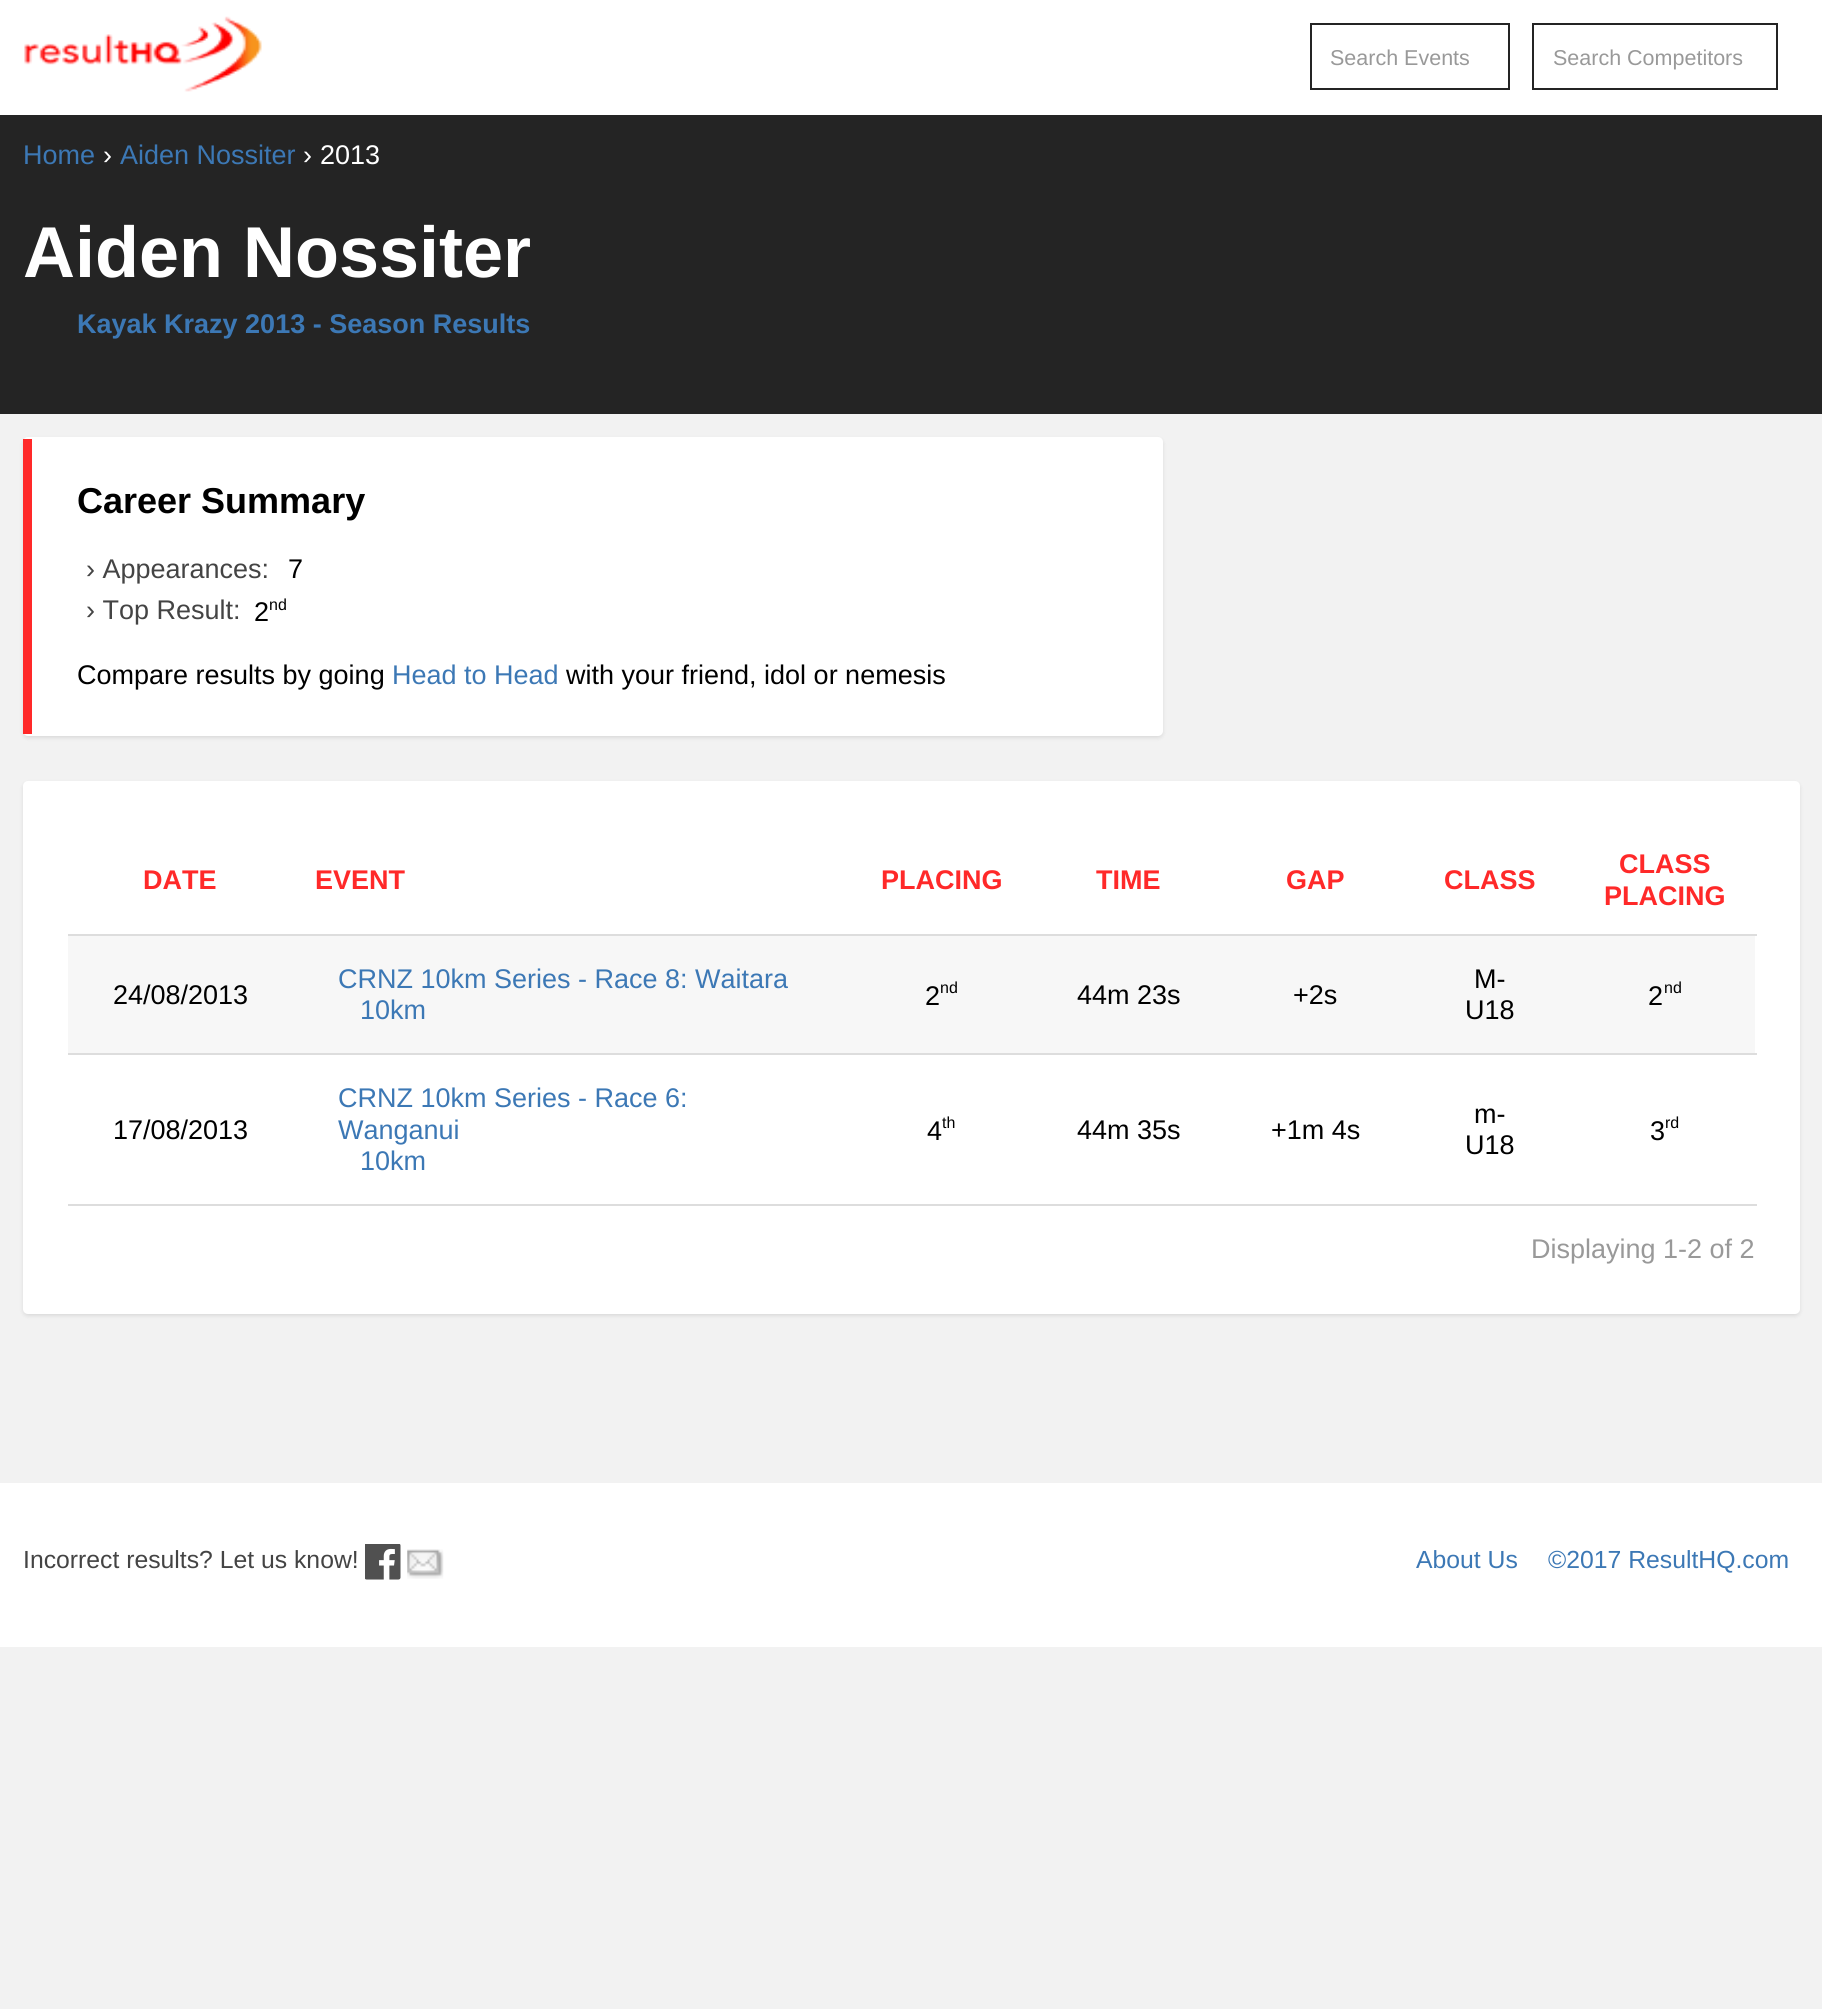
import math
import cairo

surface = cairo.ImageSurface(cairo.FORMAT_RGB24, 1822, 2009)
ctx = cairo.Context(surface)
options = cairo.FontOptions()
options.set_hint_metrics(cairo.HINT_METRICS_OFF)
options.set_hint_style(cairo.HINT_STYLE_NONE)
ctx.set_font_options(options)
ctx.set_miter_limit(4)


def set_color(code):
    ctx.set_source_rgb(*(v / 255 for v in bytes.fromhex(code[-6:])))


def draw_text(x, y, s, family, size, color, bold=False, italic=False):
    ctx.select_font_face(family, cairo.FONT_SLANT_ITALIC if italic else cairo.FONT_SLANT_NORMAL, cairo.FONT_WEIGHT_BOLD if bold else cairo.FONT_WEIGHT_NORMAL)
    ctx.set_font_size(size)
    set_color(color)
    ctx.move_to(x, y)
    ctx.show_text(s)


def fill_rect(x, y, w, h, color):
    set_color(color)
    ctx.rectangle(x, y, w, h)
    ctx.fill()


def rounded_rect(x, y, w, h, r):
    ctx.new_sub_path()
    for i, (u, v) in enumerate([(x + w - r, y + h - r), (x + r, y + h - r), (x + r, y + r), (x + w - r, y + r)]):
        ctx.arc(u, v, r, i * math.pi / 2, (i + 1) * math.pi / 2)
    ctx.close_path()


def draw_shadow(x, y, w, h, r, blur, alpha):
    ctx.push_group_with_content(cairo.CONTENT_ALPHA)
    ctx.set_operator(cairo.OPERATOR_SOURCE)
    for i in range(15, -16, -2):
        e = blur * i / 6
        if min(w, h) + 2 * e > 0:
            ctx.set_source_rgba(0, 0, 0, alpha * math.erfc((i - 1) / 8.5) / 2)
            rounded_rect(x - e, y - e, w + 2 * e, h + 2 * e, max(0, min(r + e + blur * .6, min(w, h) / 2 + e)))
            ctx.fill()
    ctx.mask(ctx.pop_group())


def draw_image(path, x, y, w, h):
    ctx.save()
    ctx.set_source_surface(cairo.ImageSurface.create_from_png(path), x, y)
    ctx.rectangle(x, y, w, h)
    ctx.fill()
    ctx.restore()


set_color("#f2f2f2")
ctx.paint()
fill_rect(0, 0, 1822, 115, "#ffffff")
draw_image("assets/img1.png", 24, 16, 238, 76)
ctx.rectangle(1311, 24, 198, 65)
set_color("#242424")
ctx.stroke()
draw_text(1330, 65, "Search Events", "Liberation Sans", 21.5, "#999999")
ctx.rectangle(1533, 24, 244, 65)
set_color("#242424")
ctx.stroke()
draw_text(1553, 65, "Search Competitors", "Liberation Sans", 21.5, "#999999")
fill_rect(0, 115, 1822, 299, "#242424")
draw_text(23, 164, "Home", "Liberation Sans", 27, "#3c78b5")
draw_text(103, 164, "›", "Liberation Sans", 27, "#ffffff")
draw_text(120, 164, "Aiden Nossiter", "Liberation Sans", 27, "#3c78b5")
draw_text(303, 164, "›", "Liberation Sans", 27, "#ffffff")
draw_text(320, 164, "2013", "Liberation Sans", 27, "#ffffff")
draw_text(23, 277, "Aiden Nossiter", "Liberation Sans", 72, "#ffffff", bold=True)
draw_text(77, 333, "Kayak Krazy 2013 - Season Results", "Liberation Sans", 27, "#3c78b5", bold=True)
set_color("#000000")
draw_shadow(23, 439, 1140, 299, 5, 2, 0.1)
set_color("#ffffff")
rounded_rect(23, 437, 1140, 299, 5)
ctx.fill()
fill_rect(23, 439, 9, 295, "#ff2929")
draw_text(77, 513, "Career Summary", "Liberation Sans", 36, "#000000", bold=True)
draw_text(86, 578, "› Appearances:", "Liberation Sans", 27, "#444444")
draw_text(288, 578, "7", "Liberation Sans", 27, "#000000")
draw_text(86, 619, "› Top Result:", "Liberation Sans", 27, "#444444")
draw_text(254, 621, "2", "Liberation Sans", 27, "#000000")
draw_text(269, 610, "nd", "Liberation Sans", 16, "#000000")
draw_text(77, 684, "Compare results by going", "Liberation Sans", 27, "#000000")
draw_text(392, 684, "Head to Head", "Liberation Sans", 27, "#3c78b5")
draw_text(566, 684, "with your friend, idol or nemesis", "Liberation Sans", 27, "#000000")
set_color("#000000")
draw_shadow(23, 783, 1777, 533, 5, 2, 0.1)
set_color("#ffffff")
rounded_rect(23, 781, 1777, 533, 5)
ctx.fill()
fill_rect(68, 934, 1689, 2, "#dddddd")
draw_text(143, 889, "DATE", "Liberation Sans", 27, "#ff2929", bold=True)
draw_text(315, 889, "EVENT", "Liberation Sans", 27, "#ff2929", bold=True)
draw_text(881, 889, "PLACING", "Liberation Sans", 27, "#ff2929", bold=True)
draw_text(1096, 889, "TIME", "Liberation Sans", 27, "#ff2929", bold=True)
draw_text(1286, 889, "GAP", "Liberation Sans", 27, "#ff2929", bold=True)
draw_text(1444, 889, "CLASS", "Liberation Sans", 27, "#ff2929", bold=True)
draw_text(1619, 873, "CLASS", "Liberation Sans", 27, "#ff2929", bold=True)
draw_text(1604, 905, "PLACING", "Liberation Sans", 27, "#ff2929", bold=True)
fill_rect(68, 936, 1687, 117, "#f7f7f7")
draw_text(113, 1004, "24/08/2013", "Liberation Sans", 27, "#000000")
draw_text(338, 988, "CRNZ 10km Series - Race 8: Waitara", "Liberation Sans", 27, "#3c78b5")
draw_text(360, 1019, "10km", "Liberation Sans", 27, "#3c78b5")
draw_text(925, 1005, "2", "Liberation Sans", 27, "#000000")
draw_text(940, 993, "nd", "Liberation Sans", 16, "#000000")
draw_text(1077, 1004, "44m 23s", "Liberation Sans", 27, "#000000")
draw_text(1293, 1004, "+2s", "Liberation Sans", 27, "#000000")
draw_text(1474, 988, "M-", "Liberation Sans", 27, "#000000")
draw_text(1465, 1019, "U18", "Liberation Sans", 27, "#000000")
fill_rect(68, 1053, 1689, 2, "#dddddd")
draw_text(1648, 1005, "2", "Liberation Sans", 27, "#000000")
draw_text(1664, 993, "nd", "Liberation Sans", 16, "#000000")
draw_text(113, 1139, "17/08/2013", "Liberation Sans", 27, "#000000")
draw_text(338, 1107, "CRNZ 10km Series - Race 6:", "Liberation Sans", 27, "#3c78b5")
draw_text(338, 1139, "Wanganui", "Liberation Sans", 27, "#3c78b5")
draw_text(360, 1170, "10km", "Liberation Sans", 27, "#3c78b5")
draw_text(927, 1140, "4", "Liberation Sans", 27, "#000000")
draw_text(942, 1128, "th", "Liberation Sans", 16, "#000000")
draw_text(1077, 1139, "44m 35s", "Liberation Sans", 27, "#000000")
draw_text(1271, 1139, "+1m 4s", "Liberation Sans", 27, "#000000")
draw_text(1474, 1123, "m-", "Liberation Sans", 27, "#000000")
draw_text(1465, 1154, "U18", "Liberation Sans", 27, "#000000")
fill_rect(68, 1204, 1689, 2, "#dddddd")
draw_text(1650, 1140, "3", "Liberation Sans", 27, "#000000")
draw_text(1665, 1128, "rd", "Liberation Sans", 16, "#000000")
draw_text(1531, 1258, "Displaying 1-2 of 2", "Liberation Sans", 27, "#999999")
fill_rect(0, 1483, 1822, 164, "#ffffff")
draw_text(23, 1568, "Incorrect results? Let us know!", "Liberation Sans", 24.75, "#444444")
draw_image("assets/img2.png", 365, 1544, 36, 36)
draw_image("assets/img3.png", 407, 1549, 37, 30)
draw_text(1416, 1568, "About Us", "Liberation Sans", 24.75, "#3c78b5")
draw_text(1548, 1568, "©2017 ResultHQ.com", "Liberation Sans", 24.75, "#3c78b5")
surface.write_to_png("output.png")
